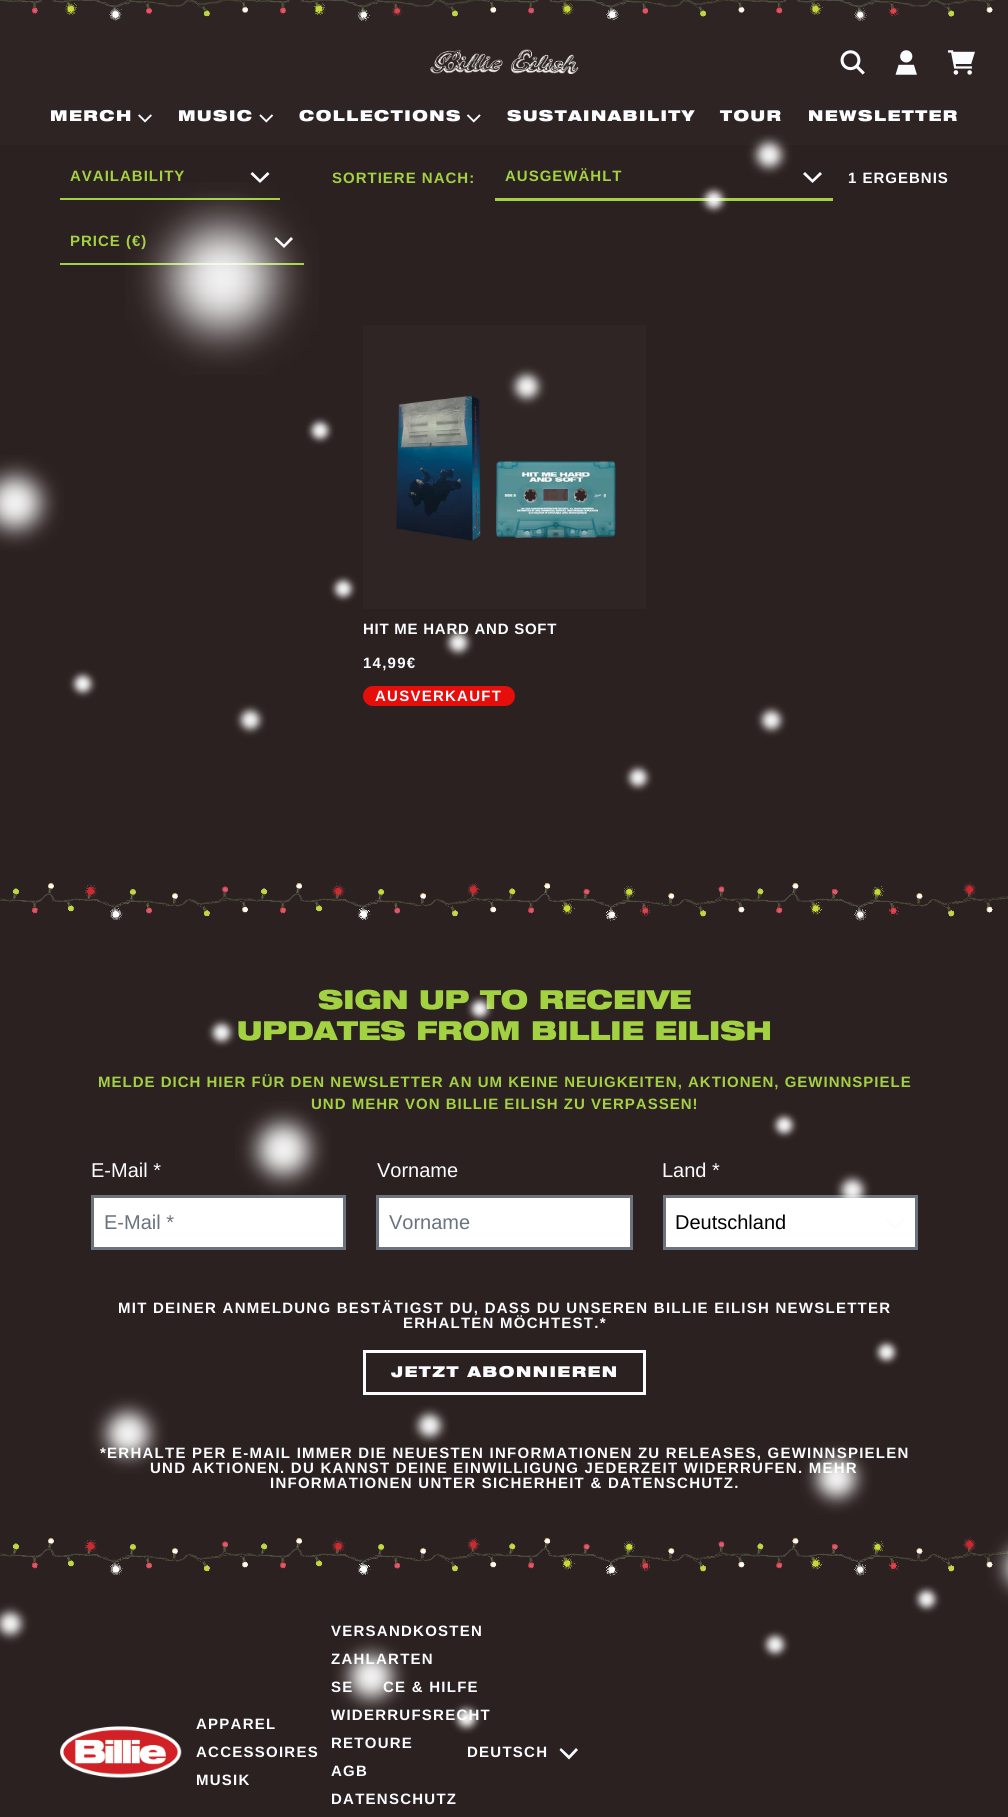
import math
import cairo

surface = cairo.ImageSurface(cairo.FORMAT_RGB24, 1008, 1817)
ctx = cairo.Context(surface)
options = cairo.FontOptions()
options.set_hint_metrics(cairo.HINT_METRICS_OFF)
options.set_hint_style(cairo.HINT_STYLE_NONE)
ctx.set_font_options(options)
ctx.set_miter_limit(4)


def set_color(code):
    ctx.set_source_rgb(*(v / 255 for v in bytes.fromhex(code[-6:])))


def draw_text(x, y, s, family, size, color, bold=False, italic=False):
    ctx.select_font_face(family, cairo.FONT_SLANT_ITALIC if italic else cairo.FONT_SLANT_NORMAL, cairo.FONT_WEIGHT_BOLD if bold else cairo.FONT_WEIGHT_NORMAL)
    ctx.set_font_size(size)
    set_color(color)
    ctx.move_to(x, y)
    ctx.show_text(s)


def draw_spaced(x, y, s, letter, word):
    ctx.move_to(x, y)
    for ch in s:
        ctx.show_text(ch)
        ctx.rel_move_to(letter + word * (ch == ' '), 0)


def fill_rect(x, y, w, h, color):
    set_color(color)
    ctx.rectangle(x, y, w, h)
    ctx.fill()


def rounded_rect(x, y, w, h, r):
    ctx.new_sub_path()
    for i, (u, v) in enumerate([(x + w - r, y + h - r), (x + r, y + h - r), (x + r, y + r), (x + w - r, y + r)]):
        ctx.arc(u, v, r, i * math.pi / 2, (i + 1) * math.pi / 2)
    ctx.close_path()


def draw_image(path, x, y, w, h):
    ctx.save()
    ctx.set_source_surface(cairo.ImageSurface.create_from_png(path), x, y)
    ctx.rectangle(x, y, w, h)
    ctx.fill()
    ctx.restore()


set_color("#2c2121")
ctx.paint()
fill_rect(0, 0, 1008, 145, "#2e2424")
draw_image("assets/img1.png", 0, 0, 994, 21)
draw_image("assets/img2.png", 430, 49, 149, 25)
draw_image("assets/img3.png", 840, 50, 25, 25)
draw_image("assets/img4.png", 895, 50, 22, 25)
draw_image("assets/img5.png", 948, 50, 27, 25)
ctx.select_font_face("Helvetica Neue Black")
ctx.set_font_size(15)
set_color("#fafcff")
draw_spaced(50, 121, "MERCH", 1.5, 0)
draw_image("assets/img6.png", 138, 114, 14, 9)
draw_spaced(178, 121, "MUSIC", 1.5, 0)
draw_image("assets/img7.png", 259, 114, 15, 9)
draw_spaced(299, 121, "COLLECTIONS", 1.5, 0)
draw_image("assets/img8.png", 466, 114, 15, 9)
draw_spaced(507, 121, "SUSTAINABILITY", 1.5, 0)
draw_spaced(720, 121, "TOUR", 1.5, 0)
draw_spaced(808, 121, "NEWSLETTER", 1.5, 0)
fill_rect(60, 198, 220, 2, "#a2d142")
ctx.select_font_face("Liberation Sans", cairo.FONT_SLANT_NORMAL, cairo.FONT_WEIGHT_BOLD)
draw_spaced(70, 181, "AVAILABILITY", 1, 0)
set_color("#fafcff")
ctx.new_path()
ctx.move_to(260, 183)
ctx.line_to(269.5, 174)
ctx.line_to(267.5, 172)
ctx.line_to(260, 179.5)
ctx.line_to(252.5, 172)
ctx.line_to(250.5, 174)
ctx.close_path()
ctx.fill()
fill_rect(60, 263, 244, 2, "#a2d142")
draw_spaced(70, 246, "PRICE (€)", 1, 0)
set_color("#fafcff")
ctx.new_path()
ctx.move_to(284, 248)
ctx.line_to(293, 239)
ctx.line_to(291, 237)
ctx.line_to(284, 244.5)
ctx.line_to(276, 237)
ctx.line_to(274.5, 239)
ctx.close_path()
ctx.fill()
set_color("#a2d142")
draw_spaced(332, 183, "SORTIERE NACH:", 1, 0)
fill_rect(495, 198, 338, 3, "#a2d142")
draw_spaced(505, 181, "AUSGEWÄHLT", 1, 0)
set_color("#fafcff")
ctx.new_path()
ctx.move_to(812.5, 183)
ctx.line_to(822, 174)
ctx.line_to(820, 172)
ctx.line_to(812.5, 179.5)
ctx.line_to(805, 172)
ctx.line_to(803, 174)
ctx.close_path()
ctx.fill()
draw_spaced(848, 183, "1 ERGEBNIS", 1, 0)
fill_rect(363, 325, 283, 284, "#2f2525")
draw_image("assets/img10.png", 396, 395, 220, 146)
set_color("#fafcff")
draw_spaced(363, 634, "HIT ME HARD AND SOFT", 0.75, 0)
draw_spaced(363, 668, "14,99€", 1.25, 0)
set_color("#e60e0a")
rounded_rect(363, 686, 152, 20, 10)
ctx.fill()
set_color("#fafcff")
draw_spaced(375, 701, "AUSVERKAUFT", 1.25, 0)
draw_image("assets/img11.png", 0, 882, 1008, 39)
draw_text(318, 1009, "SIGN UP TO RECEIVE", "Helvetica Neue Black", 26.25, "#a2d142")
draw_text(237, 1040, "UPDATES FROM BILLIE EILISH", "Helvetica Neue Black", 26.25, "#a2d142")
ctx.select_font_face("Liberation Sans", cairo.FONT_SLANT_NORMAL, cairo.FONT_WEIGHT_BOLD)
ctx.set_font_size(15)
draw_spaced(98, 1087, "MELDE DICH HIER FÜR DEN NEWSLETTER AN UM KEINE NEUIGKEITEN, AKTIONEN, GEWINNSPIELE", 1, 0)
draw_spaced(311, 1109, "UND MEHR VON BILLIE EILISH ZU VERPASSEN!", 1, 0)
draw_text(91, 1177, "E-Mail *", "Liberation Sans", 20, "#fafcff")
set_color("#ffffff")
ctx.rectangle(92.5, 1196.5, 252, 52)
ctx.fill_preserve()
set_color("#6b7280")
ctx.set_line_width(3)
ctx.stroke()
draw_text(104, 1229, "E-Mail *", "Liberation Sans", 20, "#6b7280")
draw_text(377, 1177, "Vorname", "Liberation Sans", 20, "#fafcff")
set_color("#ffffff")
ctx.rectangle(377.5, 1196.5, 254, 52)
ctx.fill_preserve()
set_color("#6b7280")
ctx.stroke()
draw_text(389, 1229, "Vorname", "Liberation Sans", 20, "#6b7280")
draw_text(662, 1177, "Land *", "Liberation Sans", 20, "#fafcff")
set_color("#ffffff")
ctx.rectangle(664.5, 1196.5, 252, 52)
ctx.fill_preserve()
set_color("#6b7280")
ctx.stroke()
draw_text(675, 1229, "Deutschland", "Liberation Sans", 20, "#000000")
draw_image("assets/img12.png", 886, 1219, 18, 9)
ctx.select_font_face("Liberation Sans", cairo.FONT_SLANT_NORMAL, cairo.FONT_WEIGHT_BOLD)
ctx.set_font_size(15)
set_color("#fafcff")
draw_spaced(118, 1313, "MIT DEINER ANMELDUNG BESTÄTIGST DU, DASS DU UNSEREN BILLIE EILISH NEWSLETTER", 1.25, 0)
draw_spaced(403, 1328, "ERHALTEN MÖCHTEST.*", 1.25, 0)
ctx.rectangle(364.5, 1351.5, 280, 42)
ctx.stroke()
ctx.select_font_face("Helvetica Neue Black")
draw_spaced(391, 1377, "JETZT ABONNIEREN", 1.5, 0)
ctx.select_font_face("Liberation Sans", cairo.FONT_SLANT_NORMAL, cairo.FONT_WEIGHT_BOLD)
draw_spaced(100, 1458, "*ERHALTE PER E-MAIL IMMER DIE NEUESTEN INFORMATIONEN ZU RELEASES, GEWINNSPIELEN", 1.25, 0)
draw_spaced(150, 1473, "UND AKTIONEN. DU KANNST DEINE EINWILLIGUNG JEDERZEIT WIDERRUFEN. MEHR", 1.25, 0)
draw_spaced(270, 1488, "INFORMATIONEN UNTER SICHERHEIT & DATENSCHUTZ.", 1.25, 0)
draw_image("assets/img11.png", 0, 1537, 1008, 39)
draw_image("assets/img13.png", 60, 1726, 122, 52)
draw_spaced(196, 1729, "APPAREL", 1.25, 0)
draw_spaced(331, 1636, "VERSANDKOSTEN", 1.25, 0)
draw_spaced(331, 1664, "ZAHLARTEN", 1.25, 0)
draw_spaced(331, 1692, "SE", 1.25, 0)
draw_spaced(383, 1692, "CE & HILFE", 1.25, 0)
draw_spaced(331, 1720, "WIDERRUFSRECHT", 1.25, 0)
draw_image("assets/img9.png", 0, 134, 1008, 1600)
draw_spaced(196, 1757, "ACCESSOIRES", 1.25, 0)
draw_spaced(196, 1785, "MUSIK", 1.25, 0)
draw_spaced(331, 1748, "RETOURE", 1.25, 0)
draw_spaced(331, 1776, "AGB", 1.25, 0)
draw_spaced(331, 1804, "DATENSCHUTZ", 1.25, 0)
draw_spaced(467, 1757, "DEUTSCH", 1.25, 0)
ctx.new_path()
ctx.move_to(569, 1759.5)
ctx.line_to(578, 1750)
ctx.line_to(576, 1748)
ctx.line_to(569, 1755.5)
ctx.line_to(561, 1748)
ctx.line_to(559.5, 1750)
ctx.close_path()
ctx.fill()
surface.write_to_png("output.png")
